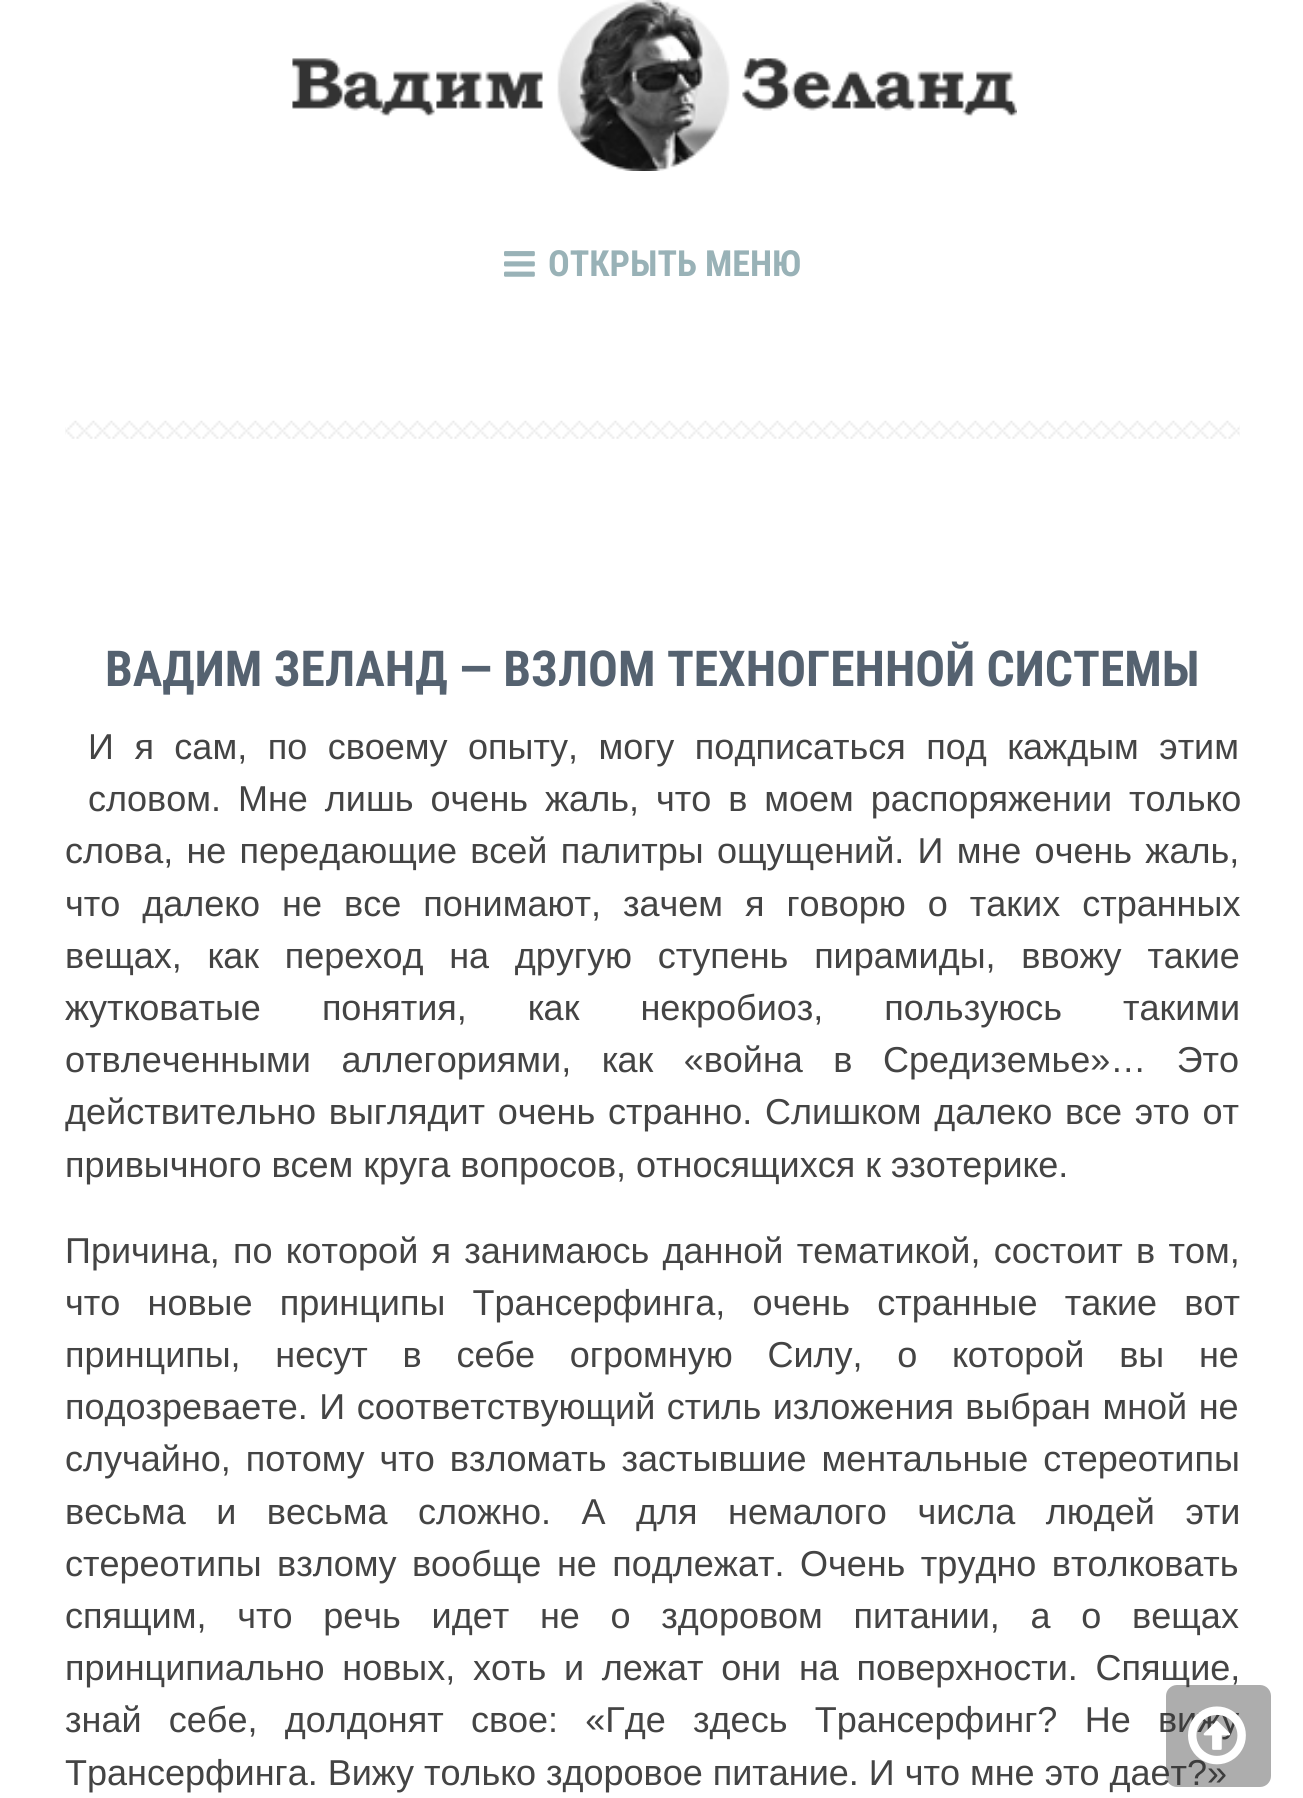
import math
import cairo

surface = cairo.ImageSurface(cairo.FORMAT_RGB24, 1303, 1798)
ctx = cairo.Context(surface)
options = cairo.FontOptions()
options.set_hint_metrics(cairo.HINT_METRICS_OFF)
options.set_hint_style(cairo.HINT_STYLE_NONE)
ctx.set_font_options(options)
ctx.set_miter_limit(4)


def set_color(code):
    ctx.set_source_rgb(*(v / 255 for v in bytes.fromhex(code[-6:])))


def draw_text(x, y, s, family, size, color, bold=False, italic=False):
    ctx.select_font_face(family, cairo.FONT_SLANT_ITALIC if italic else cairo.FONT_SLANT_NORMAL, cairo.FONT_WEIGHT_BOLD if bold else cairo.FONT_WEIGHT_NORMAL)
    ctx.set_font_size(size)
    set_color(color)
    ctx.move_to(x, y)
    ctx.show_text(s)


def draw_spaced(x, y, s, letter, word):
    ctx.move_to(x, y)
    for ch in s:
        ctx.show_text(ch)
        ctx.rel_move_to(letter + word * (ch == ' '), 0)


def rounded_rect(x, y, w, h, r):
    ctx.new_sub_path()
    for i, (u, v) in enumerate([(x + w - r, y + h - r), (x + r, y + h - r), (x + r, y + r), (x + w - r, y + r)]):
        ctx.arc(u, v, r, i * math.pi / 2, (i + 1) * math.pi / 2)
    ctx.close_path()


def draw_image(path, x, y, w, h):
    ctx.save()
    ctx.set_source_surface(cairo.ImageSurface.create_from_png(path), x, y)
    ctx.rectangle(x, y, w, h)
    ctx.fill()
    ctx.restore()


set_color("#ffffff")
ctx.paint()
draw_image("assets/img1.png", 292, 0, 725, 171)
draw_image("assets/img2.png", 504, 251, 31, 26)
draw_text(548, 276, "ОТКРЫТЬ МЕНЮ", "Roboto Condensed", 36, "#99b2b7", bold=True)
draw_image("assets/img3.png", 65, 420, 1175, 19)
draw_text(105, 686, "ВАДИМ ЗЕЛАНД — ВЗЛОМ ТЕХНОГЕННОЙ СИСТЕМЫ", "Roboto Condensed", 49.5, "#556270", bold=True)
ctx.select_font_face("Arimo")
ctx.set_font_size(36)
set_color("#444444")
draw_spaced(88, 759, "И я сам, по своему опыту, могу подписаться под каждым этим", 0, 10.5)
draw_spaced(88, 811, "словом. Мне лишь очень жаль, что в моем распоряжении только", 0, 7)
draw_spaced(65, 863, "слова, не передающие всей палитры ощущений. И мне очень жаль,", 0, 3.25)
draw_spaced(65, 916, "что далеко не все понимают, зачем я говорю о таких странных", 0, 12)
draw_spaced(65, 968, "вещах, как переход на другую ступень пирамиды, ввожу такие", 0, 15.75)
draw_spaced(65, 1020, "жутковатые понятия, как некробиоз, пользуюсь такими", 0, 51)
draw_spaced(65, 1072, "отвлеченными аллегориями, как «война в Средиземье»… Это", 0, 20.5)
draw_spaced(65, 1124, "действительно выглядит очень странно. Слишком далеко все это от", 0, 2.75)
draw_text(65, 1177, "привычного всем круга вопросов, относящихся к эзотерике.", "Arimo", 36, "#444444")
draw_spaced(65, 1263, "Причина, по которой я занимаюсь данной тематикой, состоит в том,", 0, 3.25)
draw_spaced(65, 1315, "что новые принципы Трансерфинга, очень странные такие вот", 0, 17.25)
draw_spaced(65, 1367, "принципы, несут в себе огромную Силу, о которой вы не", 0, 24.75)
draw_spaced(65, 1419, "подозреваете. И соответствующий стиль изложения выбран мной не", 0, 1.5)
draw_spaced(65, 1471, "случайно, потому что взломать застывшие ментальные стереотипы", 0, 5)
draw_spaced(65, 1524, "весьма и весьма сложно. А для немалого числа людей эти", 0, 20.5)
draw_spaced(65, 1576, "стереотипы взлому вообще не подлежат. Очень трудно втолковать", 0, 5.5)
draw_spaced(65, 1628, "спящим, что речь идет не о здоровом питании, а о вещах", 0, 20.75)
draw_spaced(65, 1680, "принципиально новых, хоть и лежат они на поверхности. Спящие,", 0, 7.75)
draw_spaced(65, 1732, "знай себе, долдонят свое: «Где здесь Трансерфинг? Не вижу", 0, 17.25)
draw_text(65, 1785, "Трансерфинга. Вижу только здоровое питание. И что мне это дает?»", "Arimo", 36, "#444444")
ctx.set_source_rgba(0.2, 0.2, 0.2, 0.4)
rounded_rect(1166, 1685, 105, 102, 11)
ctx.fill()
draw_image("assets/img4.png", 1188, 1706, 58, 59)
surface.write_to_png("output.png")
